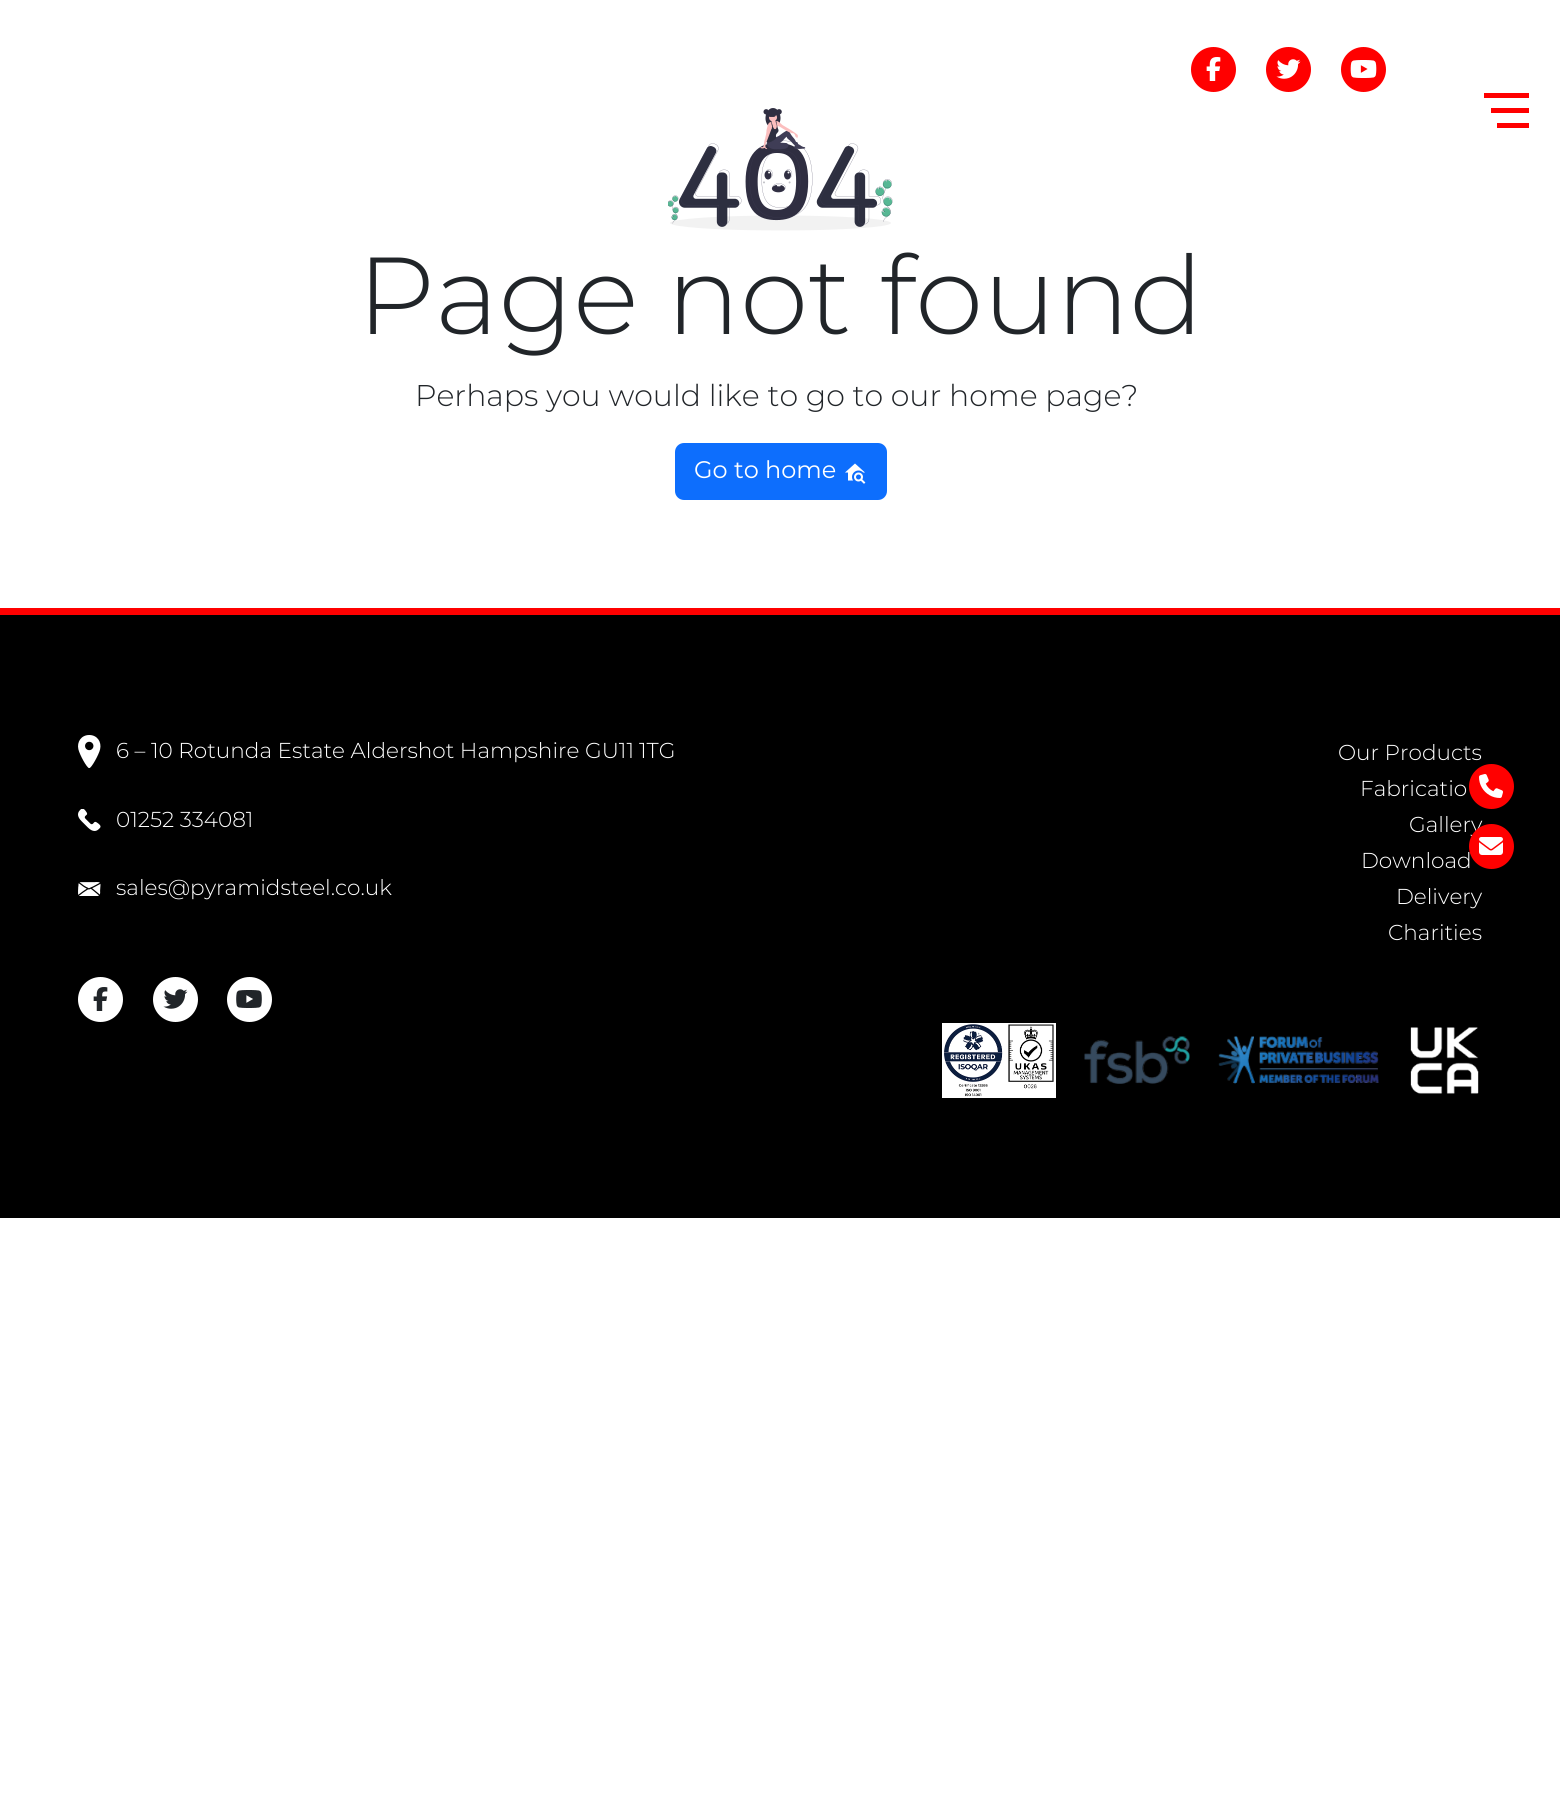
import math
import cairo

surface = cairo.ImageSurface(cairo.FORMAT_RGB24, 1560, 1812)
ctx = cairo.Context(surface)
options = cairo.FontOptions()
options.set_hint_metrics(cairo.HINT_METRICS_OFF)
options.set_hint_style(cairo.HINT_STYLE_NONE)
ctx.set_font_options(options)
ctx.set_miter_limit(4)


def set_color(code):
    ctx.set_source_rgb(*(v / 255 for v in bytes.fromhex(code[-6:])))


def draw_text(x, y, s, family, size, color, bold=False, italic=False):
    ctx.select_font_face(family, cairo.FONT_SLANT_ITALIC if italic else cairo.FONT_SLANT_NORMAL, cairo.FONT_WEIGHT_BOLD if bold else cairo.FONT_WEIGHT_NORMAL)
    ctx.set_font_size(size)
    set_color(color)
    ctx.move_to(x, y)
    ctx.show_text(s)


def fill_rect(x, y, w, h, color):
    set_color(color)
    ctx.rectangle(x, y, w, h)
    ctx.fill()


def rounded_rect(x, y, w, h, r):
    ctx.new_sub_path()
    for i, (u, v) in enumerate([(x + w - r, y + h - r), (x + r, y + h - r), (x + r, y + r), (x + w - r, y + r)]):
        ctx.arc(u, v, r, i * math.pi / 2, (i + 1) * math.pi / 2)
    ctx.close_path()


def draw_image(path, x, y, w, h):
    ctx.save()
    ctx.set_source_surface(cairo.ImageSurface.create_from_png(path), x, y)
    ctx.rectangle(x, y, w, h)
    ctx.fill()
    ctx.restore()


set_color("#ffffff")
ctx.paint()
set_color("#ff0000")
ctx.arc(1213.5, 69.5, 22.5, 0, 2 * math.pi)
ctx.fill()
draw_image("assets/img1.png", 1206, 57, 15, 24)
ctx.arc(1288.5, 69.5, 22.5, 0, 2 * math.pi)
ctx.fill()
draw_image("assets/img2.png", 1276, 59, 25, 20)
ctx.arc(1363.5, 69.5, 22.5, 0, 2 * math.pi)
ctx.fill()
draw_image("assets/img3.png", 1350, 60, 27, 18)
fill_rect(1484, 93, 45, 5, "#ff0000")
fill_rect(1491, 108, 38, 5, "#ff0000")
fill_rect(1497, 123, 32, 5, "#ff0000")
draw_image("assets/img4.png", 668, 108, 225, 123)
draw_text(357, 334, "Page not found", "Montserrat Light", 109.25, "#212529")
draw_text(415, 406, "Perhaps you would like to go to our home page?", "Montserrat Light", 30, "#212529")
set_color("#0d6efd")
rounded_rect(676, 444, 210, 55, 8)
ctx.fill_preserve()
ctx.stroke()
draw_text(694, 478, "Go to home", "Montserrat", 24, "#ffffff")
draw_image("assets/img5.png", 845, 463, 21, 21)
fill_rect(0, 615, 1560, 603, "#000000")
fill_rect(0, 608, 1560, 7, "#ff0000")
draw_image("assets/img6.png", 78, 735, 23, 33)
draw_text(116, 758, "6 – 10 Rotunda Estate Aldershot Hampshire GU11", "Montserrat Light", 21.6, "#ffffff")
draw_text(639, 758, "1TG", "Montserrat Light", 21.6, "#ffffff")
draw_image("assets/img7.png", 78, 809, 23, 22)
draw_text(116, 827, "01252 334081", "Montserrat Light", 21.6, "#ffffff")
draw_image("assets/img8.png", 78, 882, 23, 14)
draw_text(116, 895, "sales@pyramidsteel.co.uk", "Montserrat Light", 21.6, "#ffffff")
ctx.new_path()
ctx.arc(100.5, 999.5, 22.5, 0, 2 * math.pi)
ctx.fill()
draw_image("assets/img9.png", 93, 987, 15, 24)
ctx.arc(175.5, 999.5, 22.5, 0, 2 * math.pi)
ctx.fill()
draw_image("assets/img10.png", 163, 989, 25, 20)
ctx.arc(249.5, 999.5, 22.5, 0, 2 * math.pi)
ctx.fill()
draw_image("assets/img11.png", 236, 990, 26, 18)
draw_text(1338, 760, "Our Products", "Montserrat Light", 21.6, "#ffffff")
draw_text(1360, 796, "Fabricatio", "Montserrat Light", 21.6, "#ffffff")
draw_text(1409, 832, "Gallery", "Montserrat Light", 21.6, "#ffffff")
draw_text(1361, 868, "Download", "Montserrat Light", 21.6, "#ffffff")
draw_text(1396, 904, "Delivery", "Montserrat Light", 21.6, "#ffffff")
draw_text(1388, 940, "Charities", "Montserrat Light", 21.6, "#ffffff")
draw_image("assets/img12.png", 942, 1023, 114, 75)
draw_image("assets/img13.png", 1084, 1036, 106, 48)
draw_image("assets/img14.png", 1218, 1036, 161, 48)
draw_image("assets/img15.png", 1410, 1027, 69, 67)
set_color("#ff0000")
ctx.arc(1491.5, 786.5, 22.5, 0, 2 * math.pi)
ctx.fill()
draw_image("assets/img16.png", 1479, 774, 24, 24)
ctx.arc(1491.5, 846.5, 22.5, 0, 2 * math.pi)
ctx.fill()
draw_image("assets/img17.png", 1479, 837, 24, 18)
surface.write_to_png("output.png")
